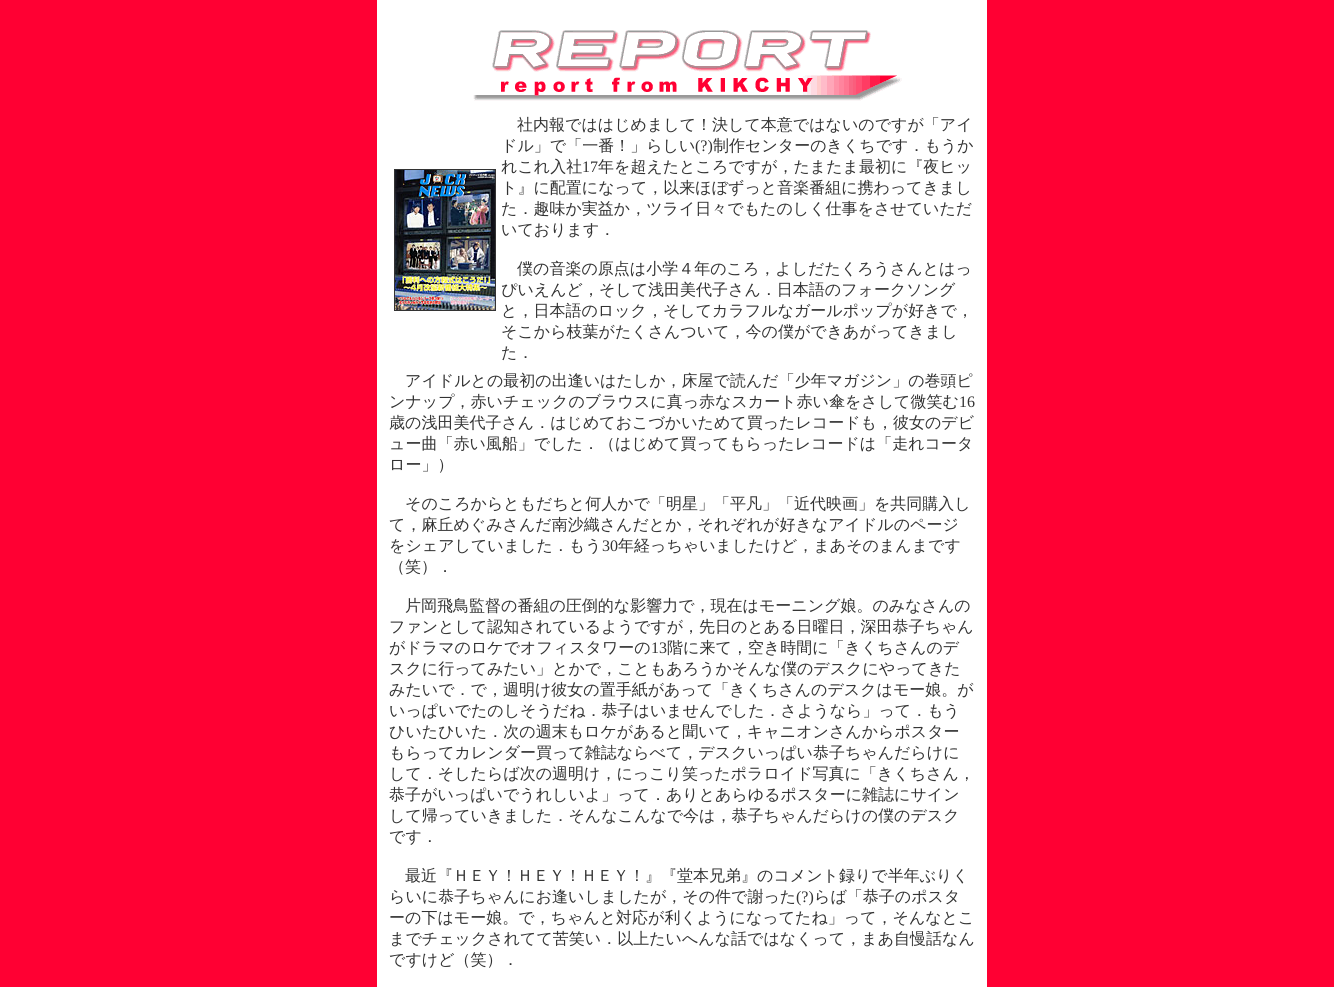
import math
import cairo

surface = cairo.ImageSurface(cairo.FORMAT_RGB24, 1334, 987)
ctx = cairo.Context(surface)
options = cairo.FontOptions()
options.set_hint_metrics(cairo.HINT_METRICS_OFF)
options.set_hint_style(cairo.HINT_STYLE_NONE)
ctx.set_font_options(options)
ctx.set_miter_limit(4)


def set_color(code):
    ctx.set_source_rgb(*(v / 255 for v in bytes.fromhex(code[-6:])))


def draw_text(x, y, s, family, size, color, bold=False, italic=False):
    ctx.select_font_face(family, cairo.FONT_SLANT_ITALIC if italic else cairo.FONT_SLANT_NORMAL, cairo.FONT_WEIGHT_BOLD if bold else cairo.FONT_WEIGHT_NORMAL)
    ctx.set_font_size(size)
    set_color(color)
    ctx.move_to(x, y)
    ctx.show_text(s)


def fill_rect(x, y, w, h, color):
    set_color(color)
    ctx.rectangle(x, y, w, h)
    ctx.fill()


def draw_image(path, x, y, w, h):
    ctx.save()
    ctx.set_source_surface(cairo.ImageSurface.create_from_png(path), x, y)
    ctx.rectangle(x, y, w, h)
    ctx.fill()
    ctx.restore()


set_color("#ff0033")
ctx.paint()
fill_rect(377, 0, 610, 987, "#ffffff")
draw_image("assets/img1.png", 473, 30, 429, 71)
ctx.rectangle(394.5, 169.5, 101, 141)
set_color("#333333")
ctx.set_line_width(1)
ctx.stroke()
draw_image("assets/img2.png", 395, 170, 100, 140)
draw_text(517, 130, "社内報でははじめまして！決して本意ではないのですが「アイ", "WenQuanYi Zen Hei Medium", 16, "#333333")
draw_text(501, 151, "ドル」で「一番！」らしい", "WenQuanYi Zen Hei Medium", 16, "#333333")
draw_text(695, 151, "(?)", "Liberation Serif", 16, "#333333")
draw_text(713, 151, "制作センターのきくちです．もうか", "WenQuanYi Zen Hei Medium", 16, "#333333")
draw_text(501, 172, "れこれ入社", "WenQuanYi Zen Hei Medium", 16, "#333333")
draw_text(582, 172, "17", "Liberation Serif", 16, "#333333")
draw_text(598, 172, "年を超えたところですが，たまたま最初に『夜ヒッ", "WenQuanYi Zen Hei Medium", 16, "#333333")
draw_text(501, 193, "ト』に配置になって，以来ほぼずっと音楽番組に携わってきまし", "WenQuanYi Zen Hei Medium", 16, "#333333")
draw_text(501, 214, "た．趣味か実益か，ツライ日々でもたのしく仕事をさせていただ", "WenQuanYi Zen Hei Medium", 16, "#333333")
draw_text(501, 235, "いております．", "WenQuanYi Zen Hei Medium", 16, "#333333")
draw_text(517, 274, "僕の音楽の原点は小学４年のころ，よしだたくろうさんとはっ", "WenQuanYi Zen Hei Medium", 16, "#333333")
draw_text(501, 295, "ぴいえんど，そして浅田美代子さん．日本語のフォークソング", "WenQuanYi Zen Hei Medium", 16, "#333333")
draw_text(501, 316, "と，日本語のロック，そしてカラフルなガールポップが好きで，", "WenQuanYi Zen Hei Medium", 16, "#333333")
draw_text(501, 337, "そこから枝葉がたくさんついて，今の僕ができあがってきまし", "WenQuanYi Zen Hei Medium", 16, "#333333")
draw_text(501, 358, "た．", "WenQuanYi Zen Hei Medium", 16, "#333333")
draw_text(405, 386, "アイドルとの最初の出逢いはたしか，床屋で読んだ「少年マガジン」の巻頭ピ", "WenQuanYi Zen Hei Medium", 16, "#333333")
draw_text(389, 407, "ンナップ，赤いチェックのブラウスに真っ赤なスカート赤い傘をさして微笑む", "WenQuanYi Zen Hei Medium", 16, "#333333")
draw_text(959, 407, "16", "Liberation Serif", 16, "#333333")
draw_text(389, 428, "歳の浅田美代子さん．はじめておこづかいためて買ったレコードも，彼女のデビ", "WenQuanYi Zen Hei Medium", 16, "#333333")
draw_text(389, 449, "ュー曲「赤い風船」でした．（はじめて買ってもらったレコードは「走れコータ", "WenQuanYi Zen Hei Medium", 16, "#333333")
draw_text(389, 470, "ロー」）", "WenQuanYi Zen Hei Medium", 16, "#333333")
draw_text(405, 509, "そのころからともだちと何人かで「明星」「平凡」「近代映画」を共同購入し", "WenQuanYi Zen Hei Medium", 16, "#333333")
draw_text(389, 530, "て，麻丘めぐみさんだ南沙織さんだとか，それぞれが好きなアイドルのページ", "WenQuanYi Zen Hei Medium", 16, "#333333")
draw_text(389, 551, "をシェアしていました．もう", "WenQuanYi Zen Hei Medium", 16, "#333333")
draw_text(602, 551, "30", "Liberation Serif", 16, "#333333")
draw_text(618, 551, "年経っちゃいましたけど，まあそのまんまです", "WenQuanYi Zen Hei Medium", 16, "#333333")
draw_text(389, 572, "（笑）．", "WenQuanYi Zen Hei Medium", 16, "#333333")
draw_text(405, 611, "片岡飛鳥監督の番組の圧倒的な影響力で，現在はモーニング娘。のみなさんの", "WenQuanYi Zen Hei Medium", 16, "#333333")
draw_text(389, 632, "ファンとして認知されているようですが，先日のとある日曜日，深田恭子ちゃん", "WenQuanYi Zen Hei Medium", 16, "#333333")
draw_text(389, 653, "がドラマのロケでオフィスタワーの", "WenQuanYi Zen Hei Medium", 16, "#333333")
draw_text(651, 653, "13", "Liberation Serif", 16, "#333333")
draw_text(667, 653, "階に来て，空き時間に「きくちさんのデ", "WenQuanYi Zen Hei Medium", 16, "#333333")
draw_text(389, 674, "スクに行ってみたい」とかで，こともあろうかそんな僕のデスクにやってきた", "WenQuanYi Zen Hei Medium", 16, "#333333")
draw_text(389, 695, "みたいで．で，週明け彼女の置手紙があって「きくちさんのデスクはモー娘。が", "WenQuanYi Zen Hei Medium", 16, "#333333")
draw_text(389, 716, "いっぱいでたのしそうだね．恭子はいませんでした．さようなら」って．もう", "WenQuanYi Zen Hei Medium", 16, "#333333")
draw_text(389, 737, "ひいたひいた．次の週末もロケがあると聞いて，キャニオンさんからポスター", "WenQuanYi Zen Hei Medium", 16, "#333333")
draw_text(389, 758, "もらってカレンダー買って雑誌ならべて，デスクいっぱい恭子ちゃんだらけに", "WenQuanYi Zen Hei Medium", 16, "#333333")
draw_text(389, 779, "して．そしたらば次の週明け，にっこり笑ったポラロイド写真に「きくちさん，", "WenQuanYi Zen Hei Medium", 16, "#333333")
draw_text(389, 800, "恭子がいっぱいでうれしいよ」って．ありとあらゆるポスターに雑誌にサイン", "WenQuanYi Zen Hei Medium", 16, "#333333")
draw_text(389, 821, "して帰っていきました．そんなこんなで今は，恭子ちゃんだらけの僕のデスク", "WenQuanYi Zen Hei Medium", 16, "#333333")
draw_text(389, 842, "です．", "WenQuanYi Zen Hei Medium", 16, "#333333")
draw_text(405, 881, "最近『ＨＥＹ！ＨＥＹ！ＨＥＹ！』『堂本兄弟』のコメント録りで半年ぶりく", "WenQuanYi Zen Hei Medium", 16, "#333333")
draw_text(389, 902, "らいに恭子ちゃんにお逢いしましたが，その件で謝った", "WenQuanYi Zen Hei Medium", 16, "#333333")
draw_text(796, 902, "(?)", "Liberation Serif", 16, "#333333")
draw_text(814, 902, "らば「恭子のポスタ", "WenQuanYi Zen Hei Medium", 16, "#333333")
draw_text(389, 923, "ーの下はモー娘。で，ちゃんと対応が利くようになってたね」って，そんなとこ", "WenQuanYi Zen Hei Medium", 16, "#333333")
draw_text(389, 944, "までチェックされてて苦笑い．以上たいへんな話ではなくって，まあ自慢話なん", "WenQuanYi Zen Hei Medium", 16, "#333333")
draw_text(389, 965, "ですけど（笑）．", "WenQuanYi Zen Hei Medium", 16, "#333333")
surface.write_to_png("output.png")
